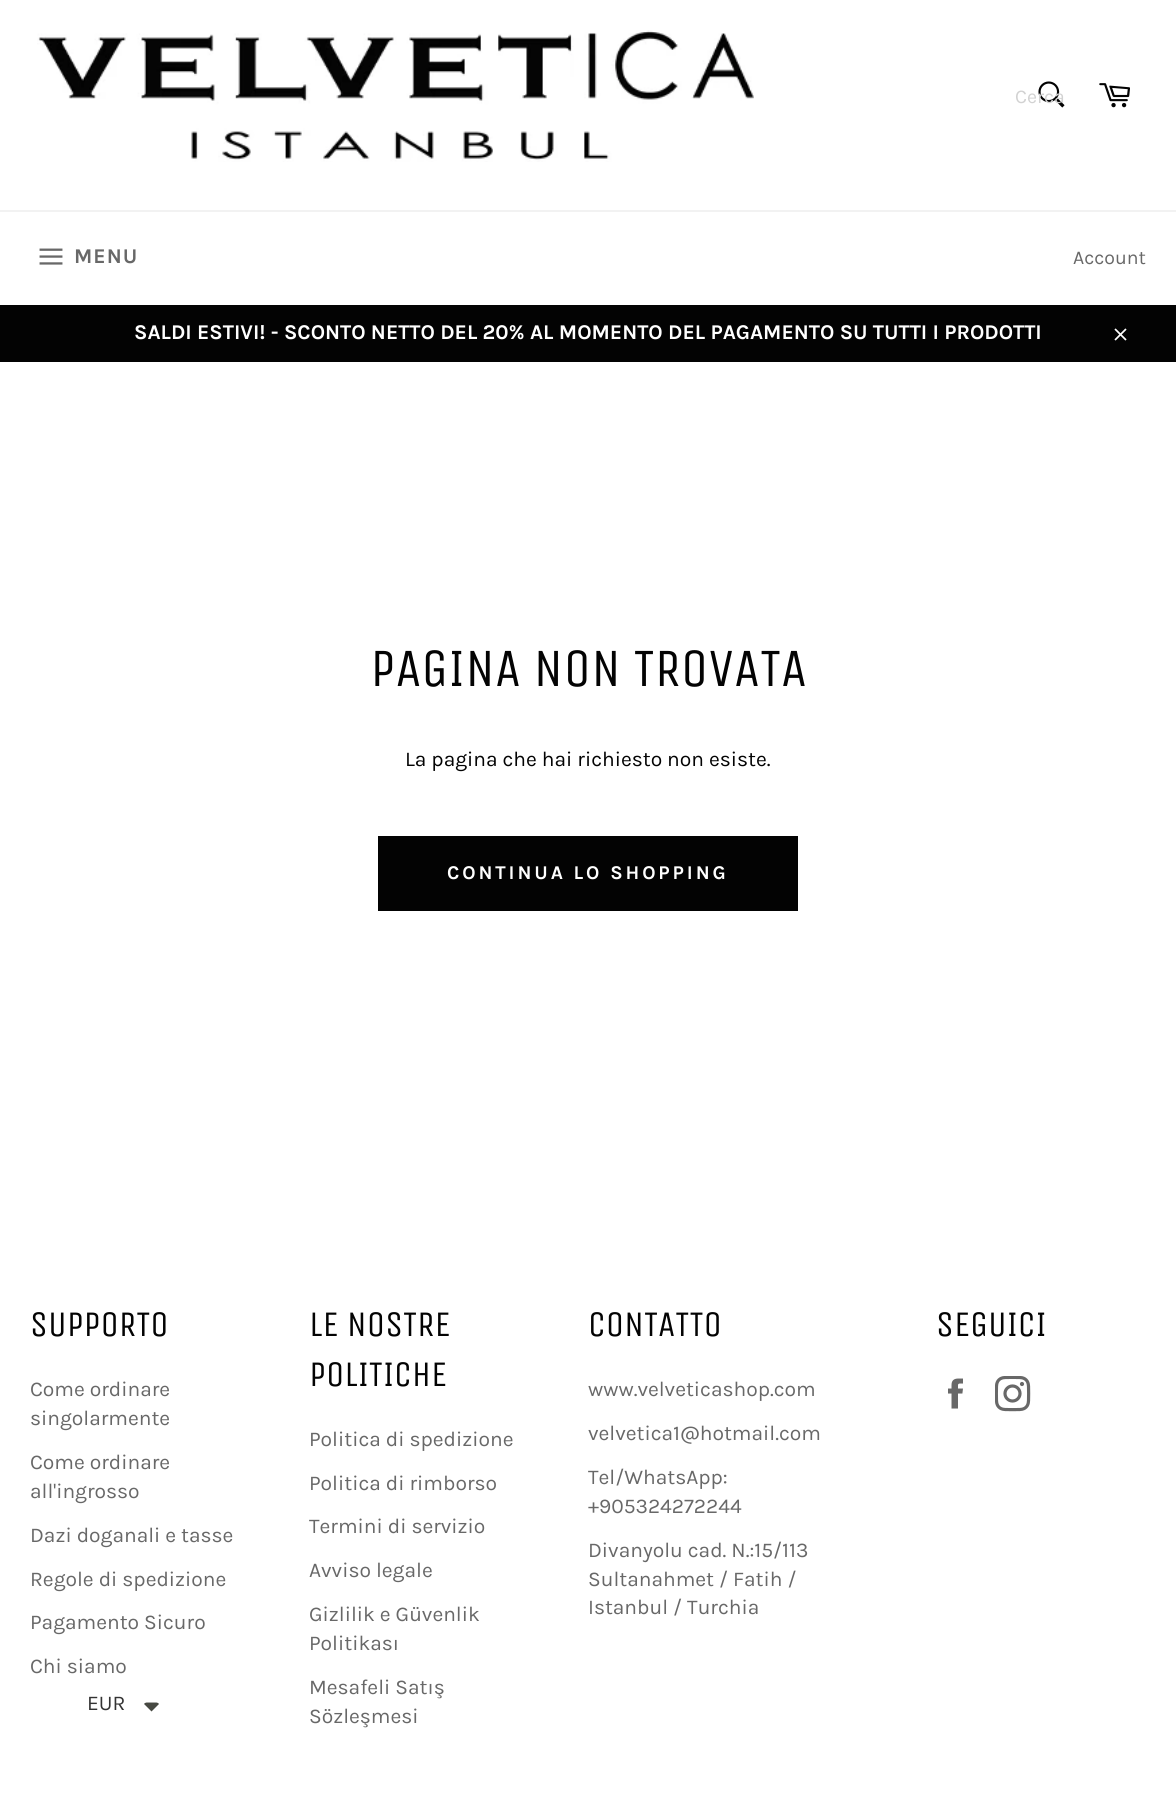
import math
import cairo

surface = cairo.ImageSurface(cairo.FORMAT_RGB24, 1176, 1794)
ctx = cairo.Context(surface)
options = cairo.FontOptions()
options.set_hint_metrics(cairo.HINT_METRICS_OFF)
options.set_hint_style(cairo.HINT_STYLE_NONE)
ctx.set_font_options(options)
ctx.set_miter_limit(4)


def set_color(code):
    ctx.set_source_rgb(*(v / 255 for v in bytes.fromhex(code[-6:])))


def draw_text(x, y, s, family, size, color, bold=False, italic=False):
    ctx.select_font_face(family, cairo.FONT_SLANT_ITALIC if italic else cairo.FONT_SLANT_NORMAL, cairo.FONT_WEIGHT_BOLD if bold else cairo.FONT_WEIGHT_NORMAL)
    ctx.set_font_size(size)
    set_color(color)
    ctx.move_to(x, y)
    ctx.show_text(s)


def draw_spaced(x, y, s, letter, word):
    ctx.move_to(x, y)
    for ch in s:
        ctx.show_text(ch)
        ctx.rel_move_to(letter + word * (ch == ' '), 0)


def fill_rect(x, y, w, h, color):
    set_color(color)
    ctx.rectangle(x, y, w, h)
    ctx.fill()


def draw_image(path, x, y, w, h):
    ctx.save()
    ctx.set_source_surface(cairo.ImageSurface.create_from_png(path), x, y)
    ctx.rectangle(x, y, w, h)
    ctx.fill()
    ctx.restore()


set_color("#ffffff")
ctx.paint()
draw_image("assets/img1.png", 37, 30, 717, 132)
draw_image("assets/img2.png", 1038, 81, 27, 27)
draw_text(1015, 103, "Cerca", "Karla", 19.5, "#d2d2d2")
draw_image("assets/img3.png", 1099, 83, 31, 25)
fill_rect(0, 210, 1176, 2, "#f2f2f2")
draw_image("assets/img4.png", 39, 248, 24, 17)
ctx.select_font_face("Karla", cairo.FONT_SLANT_NORMAL, cairo.FONT_WEIGHT_BOLD)
ctx.set_font_size(21)
set_color("#686868")
draw_spaced(74, 263, "MENU", 1, 0)
draw_text(1073, 264, "Account", "Karla", 19.5, "#686868")
fill_rect(0, 305, 1176, 57, "#030303")
draw_text(134, 339, "SALDI ESTIVI! - SCONTO NETTO DEL 20% AL MOMENTO DEL PAGAMENTO SU TUTTI I PRODOTTI", "Karla", 21, "#ffffff", bold=True)
draw_image("assets/img5.png", 1114, 328, 13, 13)
draw_text(370, 686, "PAGINA NON TROVATA", "Unica One", 54, "#030303")
draw_text(405, 766, "La pagina che hai richiesto non esiste.", "Karla", 21, "#030303")
fill_rect(378, 836, 420, 75, "#030303")
ctx.select_font_face("Karla", cairo.FONT_SLANT_NORMAL, cairo.FONT_WEIGHT_BOLD)
ctx.set_font_size(19.5)
set_color("#ffffff")
draw_spaced(447, 879, "CONTINUA LO SHOPPING", 2.9, 0)
draw_text(30, 1336, "SUPPORTO", "Unica One", 36, "#030303")
draw_text(30, 1396, "Come ordinare", "Karla", 21, "#686868")
draw_text(30, 1425, "singolarmente", "Karla", 21, "#686868")
draw_text(30, 1469, "Come ordinare", "Karla", 21, "#686868")
draw_text(30, 1498, "all'ingrosso", "Karla", 21, "#686868")
draw_text(30, 1542, "Dazi doganali e tasse", "Karla", 21, "#686868")
draw_text(30, 1586, "Regole di spedizione", "Karla", 21, "#686868")
draw_text(30, 1629, "Pagamento Sicuro", "Karla", 21, "#686868")
draw_text(30, 1673, "Chi siamo", "Karla", 21, "#686868")
draw_text(309, 1336, "LE NOSTRE", "Unica One", 36, "#030303")
draw_text(309, 1386, "POLITICHE", "Unica One", 36, "#030303")
draw_text(309, 1446, "Politica di spedizione", "Karla", 21, "#686868")
draw_text(309, 1490, "Politica di rimborso", "Karla", 21, "#686868")
draw_text(309, 1533, "Termini di servizio", "Karla", 21, "#686868")
draw_text(309, 1577, "Avviso legale", "Karla", 21, "#686868")
draw_text(309, 1621, "Gizlilik e Güvenlik", "Karla", 21, "#686868")
draw_text(309, 1650, "Politikası", "Karla", 21, "#686868")
draw_text(309, 1694, "Mesafeli Satış", "Karla", 21, "#686868")
draw_text(309, 1723, "Sözleşmesi", "Karla", 21, "#686868")
draw_text(588, 1336, "CONTATTO", "Unica One", 36, "#030303")
draw_text(588, 1396, "www.velveticashop.com", "Karla", 21, "#686868")
draw_text(588, 1440, "velvetica1@hotmail.com", "Karla", 21, "#686868")
draw_text(588, 1484, "Tel/WhatsApp:", "Karla", 21, "#686868")
draw_text(588, 1513, "+905324272244", "Karla", 21, "#686868")
draw_text(588, 1557, "Divanyolu cad. N.:15/113", "Karla", 21, "#686868")
draw_text(588, 1586, "Sultanahmet / Fatih /", "Karla", 21, "#686868")
draw_text(588, 1614, "Istanbul / Turchia", "Karla", 21, "#686868")
draw_text(936, 1336, "SEGUICI", "Unica One", 36, "#030303")
draw_image("assets/img6.png", 948, 1378, 15, 31)
draw_image("assets/img7.png", 995, 1376, 36, 36)
draw_text(87, 1710, "EUR", "Karla", 21, "#333333")
set_color("#474942")
ctx.new_path()
ctx.move_to(147, 1702.5)
ctx.curve_to(146, 1702.5, 144.5, 1703, 144, 1704)
ctx.line_to(151.5, 1711.5)
ctx.line_to(159, 1704)
ctx.curve_to(158.5, 1703, 157, 1702.5, 156, 1702.5)
ctx.close_path()
ctx.fill()
surface.write_to_png("output.png")
